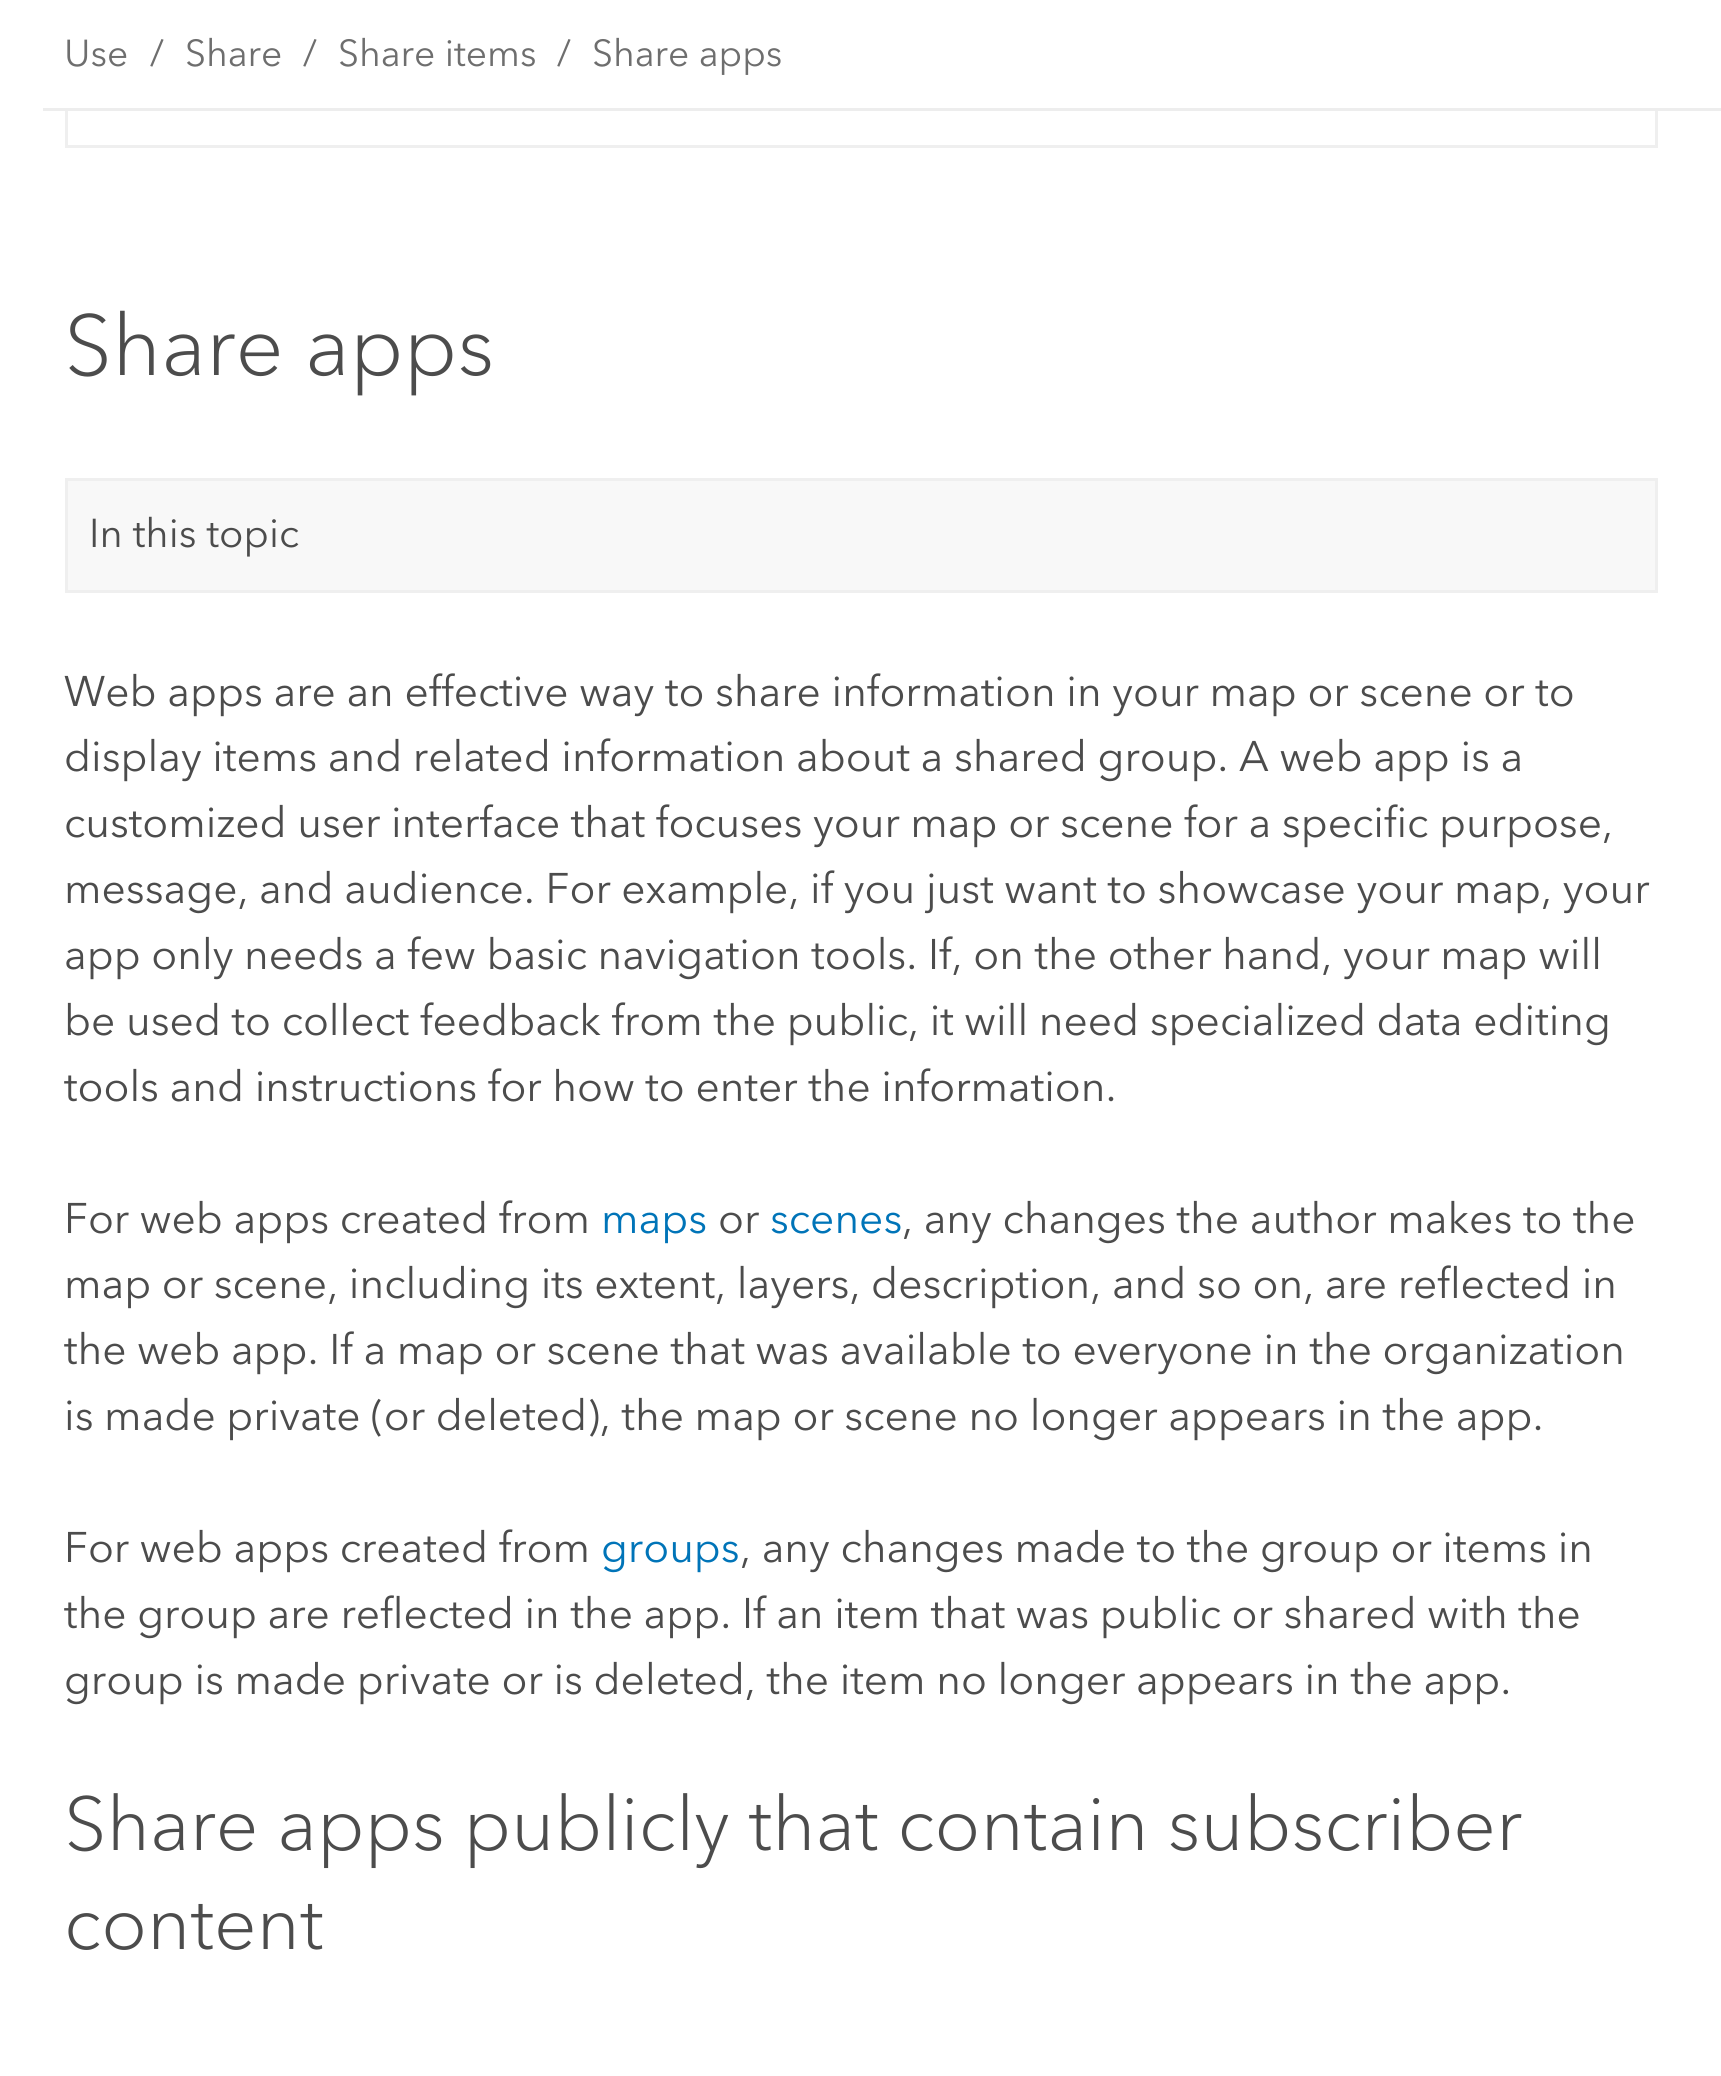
import math
import cairo

surface = cairo.ImageSurface(cairo.FORMAT_RGB24, 1721, 2076)
ctx = cairo.Context(surface)
options = cairo.FontOptions()
options.set_hint_metrics(cairo.HINT_METRICS_OFF)
options.set_hint_style(cairo.HINT_STYLE_NONE)
ctx.set_font_options(options)
ctx.set_miter_limit(4)


def set_color(code):
    ctx.set_source_rgb(*(v / 255 for v in bytes.fromhex(code[-6:])))


def draw_text(x, y, s, family, size, color, bold=False, italic=False):
    ctx.select_font_face(family, cairo.FONT_SLANT_ITALIC if italic else cairo.FONT_SLANT_NORMAL, cairo.FONT_WEIGHT_BOLD if bold else cairo.FONT_WEIGHT_NORMAL)
    ctx.set_font_size(size)
    set_color(color)
    ctx.move_to(x, y)
    ctx.show_text(s)


def fill_rect(x, y, w, h, color):
    set_color(color)
    ctx.rectangle(x, y, w, h)
    ctx.fill()


set_color("#ffffff")
ctx.paint()
fill_rect(43, 108, 1678, 3, "#ededed")
draw_text(64, 66, "Use", "Avenir Next", 37.25, "#6e6e6e")
draw_text(150, 66, "/", "Avenir Next", 37.25, "#6e6e6e")
draw_text(185, 66, "Share", "Avenir Next", 37.25, "#6e6e6e")
draw_text(303, 66, "/", "Avenir Next", 37.25, "#6e6e6e")
draw_text(338, 66, "Share items", "Avenir Next", 37.25, "#6e6e6e")
draw_text(557, 66, "/", "Avenir Next", 37.25, "#6e6e6e")
draw_text(592, 66, "Share apps", "Avenir Next", 37.25, "#6e6e6e")
fill_rect(1655, 111, 3, 37, "#efefef")
fill_rect(65, 145, 1593, 3, "#efefef")
fill_rect(65, 111, 3, 37, "#efefef")
draw_text(64, 375, "Share apps", "Avenir Next Light", 85, "#4c4c4c")
fill_rect(1655, 478, 3, 115, "#efefef")
fill_rect(65, 590, 1593, 3, "#efefef")
fill_rect(65, 478, 3, 115, "#efefef")
fill_rect(68, 481, 1587, 109, "#f8f8f8")
fill_rect(68, 478, 1587, 3, "#efefef")
draw_text(89, 547, "In this topic", "Avenir Next", 40, "#4c4c4c")
draw_text(64, 706, "Web apps are an effective way to share information in your map or scene or to", "Avenir Next", 42.5, "#4c4c4c")
draw_text(64, 771, "display items and related information about a shared group. A web app is a", "Avenir Next", 42.5, "#4c4c4c")
draw_text(64, 837, "customized user interface that focuses your map or scene for a specific purpose,", "Avenir Next", 42.5, "#4c4c4c")
draw_text(64, 903, "message, and audience. For example, if you just want to showcase your map, your", "Avenir Next", 42.5, "#4c4c4c")
draw_text(64, 969, "app only needs a few basic navigation tools. If, on the other hand, your map will", "Avenir Next", 42.5, "#4c4c4c")
draw_text(64, 1035, "be used to collect feedback from the public, it will need specialized data editing", "Avenir Next", 42.5, "#4c4c4c")
draw_text(64, 1101, "tools and instructions for how to enter the information.", "Avenir Next", 42.5, "#4c4c4c")
draw_text(64, 1233, "For web apps created from", "Avenir Next", 42.5, "#4c4c4c")
draw_text(601, 1233, "maps", "Avenir Next", 42.5, "#0074b8")
draw_text(718, 1233, "or", "Avenir Next", 42.5, "#4c4c4c")
draw_text(770, 1233, "scenes", "Avenir Next", 42.5, "#0074b8")
draw_text(902, 1233, ", any changes the author makes to the", "Avenir Next", 42.5, "#4c4c4c")
draw_text(64, 1298, "map or scene, including its extent, layers, description, and so on, are reflected in", "Avenir Next", 42.5, "#4c4c4c")
draw_text(64, 1364, "the web app. If a map or scene that was available to everyone in the organization", "Avenir Next", 42.5, "#4c4c4c")
draw_text(64, 1430, "is made private (or deleted), the map or scene no longer appears in the app.", "Avenir Next", 42.5, "#4c4c4c")
draw_text(64, 1562, "For web apps created from", "Avenir Next", 42.5, "#4c4c4c")
draw_text(601, 1562, "groups", "Avenir Next", 42.5, "#0074b8")
draw_text(740, 1562, ", any changes made to the group or items in", "Avenir Next", 42.5, "#4c4c4c")
draw_text(64, 1628, "the group are reflected in the app. If an item that was public or shared with the", "Avenir Next", 42.5, "#4c4c4c")
draw_text(64, 1694, "group is made private or is deleted, the item no longer appears in the app.", "Avenir Next", 42.5, "#4c4c4c")
draw_text(64, 1850, "Share apps publicly that contain subscriber", "Avenir Next Light", 75.2, "#4c4c4c")
draw_text(64, 1949, "content", "Avenir Next Light", 75.2, "#4c4c4c")
surface.write_to_png("output.png")
